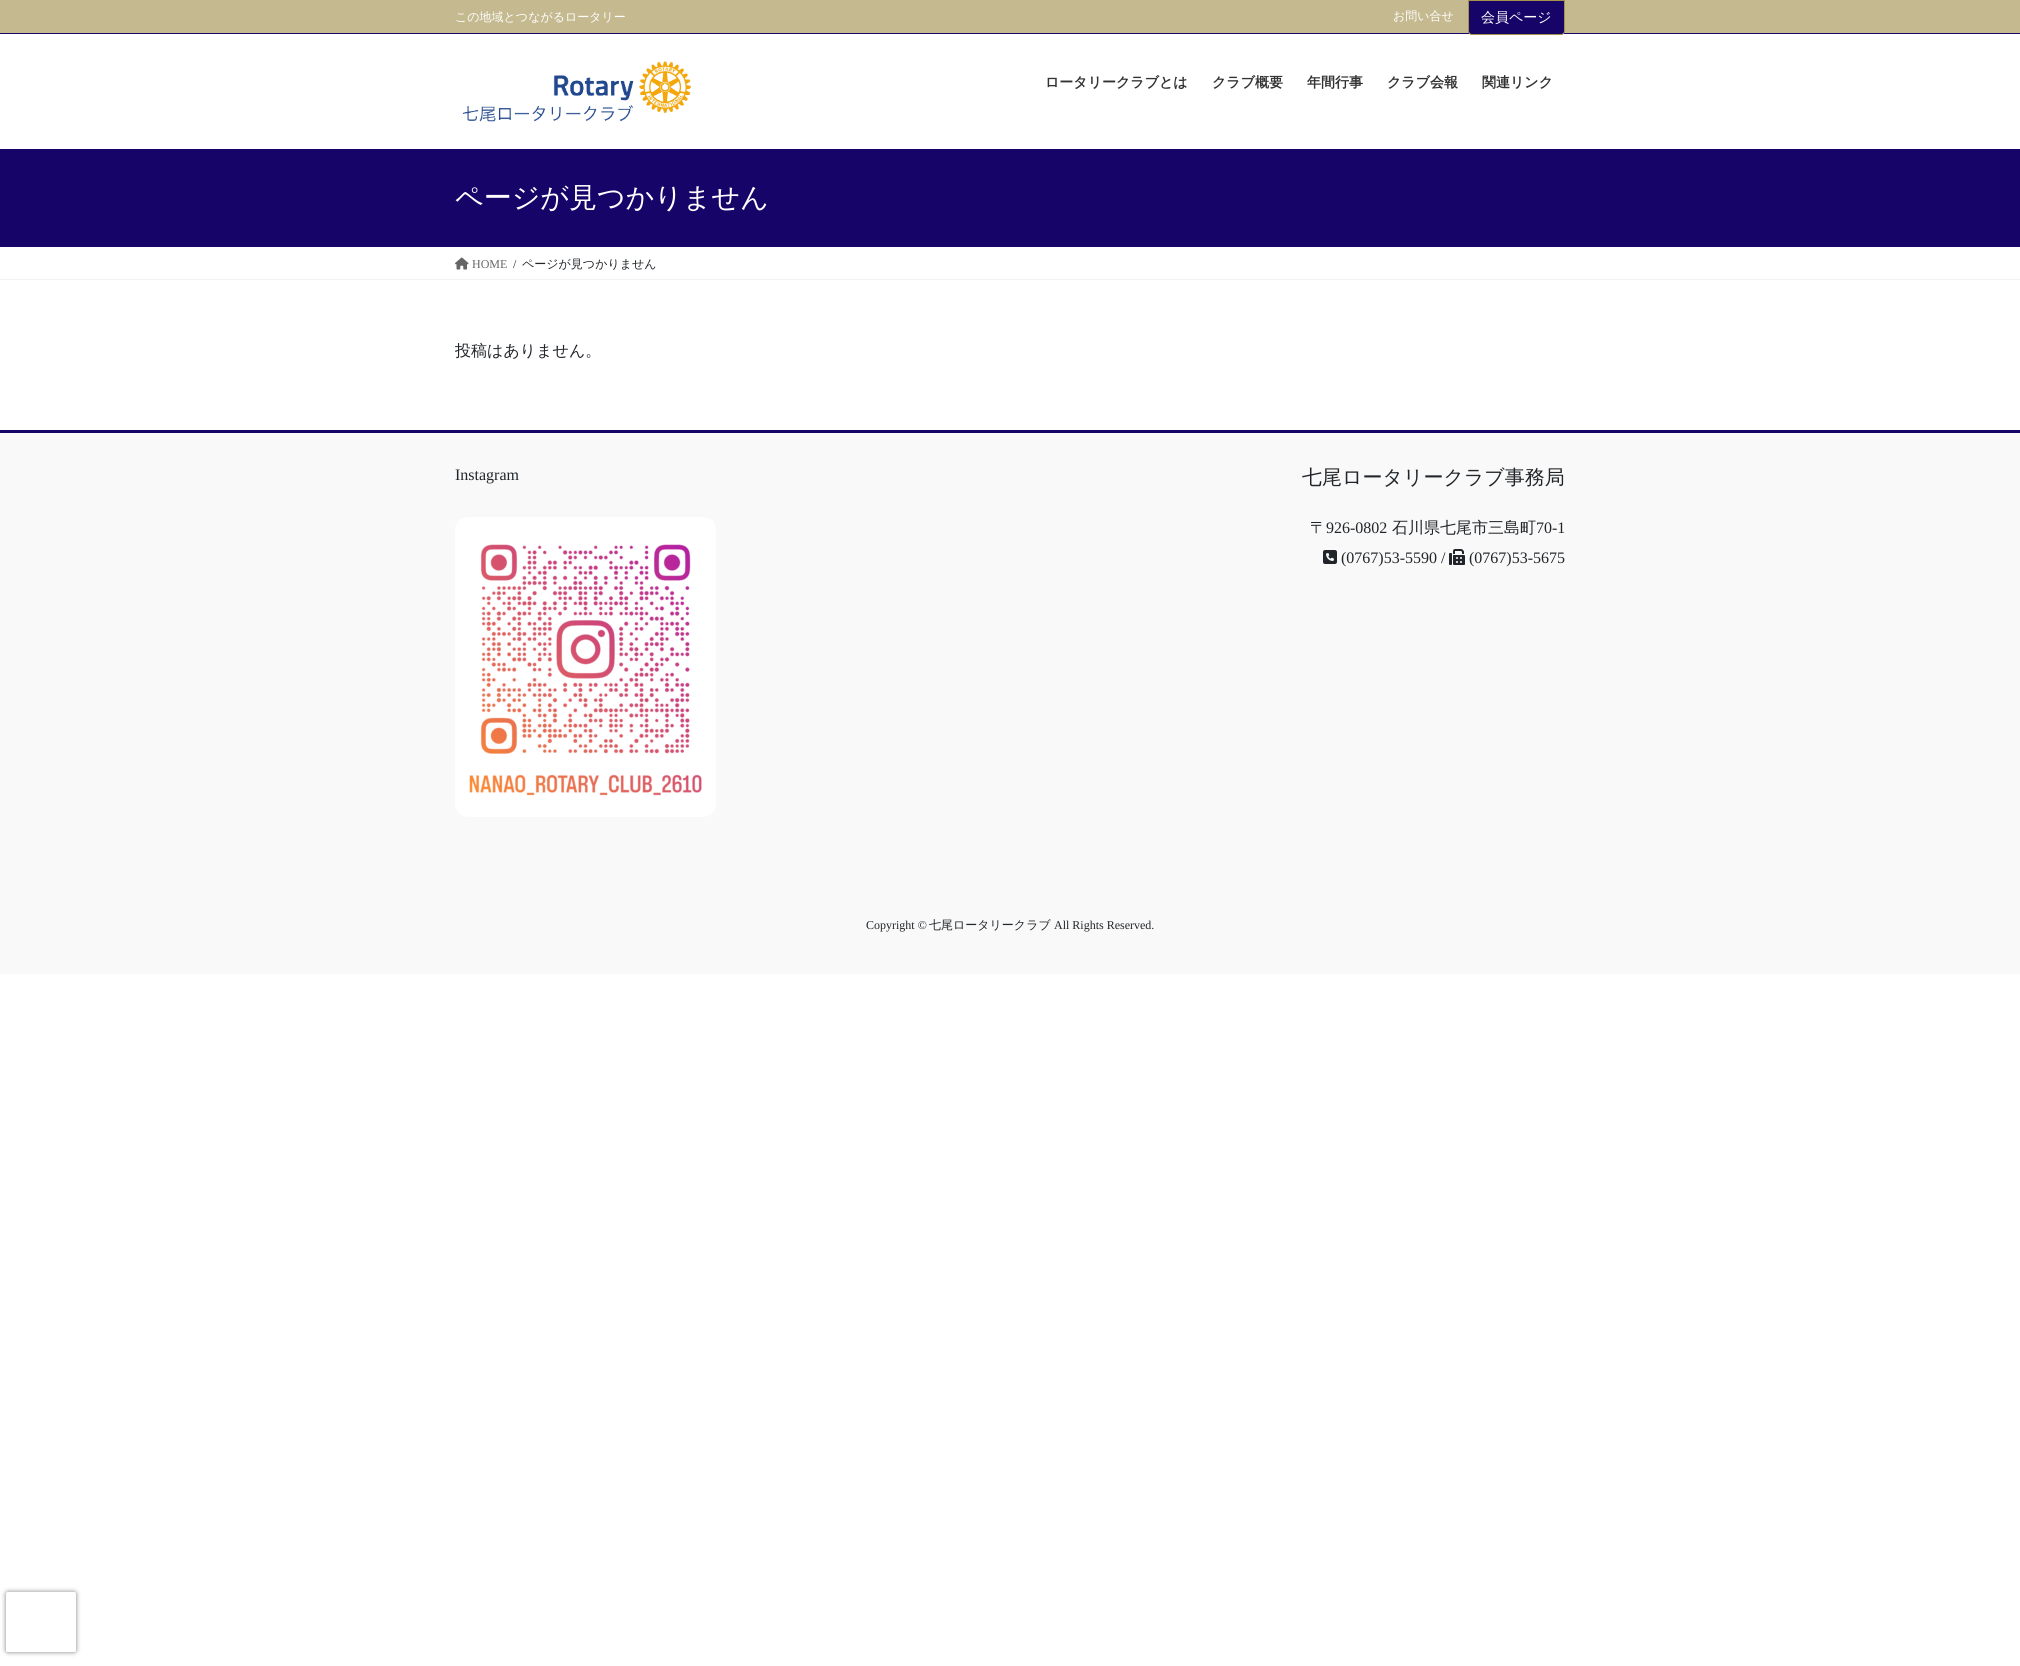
import math
import cairo

surface = cairo.ImageSurface(cairo.FORMAT_RGB24, 2020, 1666)
ctx = cairo.Context(surface)
options = cairo.FontOptions()
options.set_hint_metrics(cairo.HINT_METRICS_OFF)
options.set_hint_style(cairo.HINT_STYLE_NONE)
ctx.set_font_options(options)
ctx.set_miter_limit(4)


def set_color(code):
    ctx.set_source_rgb(*(v / 255 for v in bytes.fromhex(code[-6:])))


def draw_text(x, y, s, family, size, color, bold=False, italic=False):
    ctx.select_font_face(family, cairo.FONT_SLANT_ITALIC if italic else cairo.FONT_SLANT_NORMAL, cairo.FONT_WEIGHT_BOLD if bold else cairo.FONT_WEIGHT_NORMAL)
    ctx.set_font_size(size)
    set_color(color)
    ctx.move_to(x, y)
    ctx.show_text(s)


def fill_rect(x, y, w, h, color):
    set_color(color)
    ctx.rectangle(x, y, w, h)
    ctx.fill()


def rounded_rect(x, y, w, h, r):
    ctx.new_sub_path()
    for i, (u, v) in enumerate([(x + w - r, y + h - r), (x + r, y + h - r), (x + r, y + r), (x + w - r, y + r)]):
        ctx.arc(u, v, r, i * math.pi / 2, (i + 1) * math.pi / 2)
    ctx.close_path()


def draw_shadow(x, y, w, h, r, blur, alpha):
    ctx.push_group_with_content(cairo.CONTENT_ALPHA)
    ctx.set_operator(cairo.OPERATOR_SOURCE)
    for i in range(15, -16, -2):
        e = blur * i / 6
        if min(w, h) + 2 * e > 0:
            ctx.set_source_rgba(0, 0, 0, alpha * math.erfc((i - 1) / 8.5) / 2)
            rounded_rect(x - e, y - e, w + 2 * e, h + 2 * e, max(0, min(r + e + blur * .6, min(w, h) / 2 + e)))
            ctx.fill()
    ctx.mask(ctx.pop_group())


def draw_image(path, x, y, w, h):
    ctx.save()
    ctx.set_source_surface(cairo.ImageSurface.create_from_png(path), x, y)
    ctx.rectangle(x, y, w, h)
    ctx.fill()
    ctx.restore()


set_color("#ffffff")
ctx.paint()
fill_rect(0, 0, 2020, 33, "#c5b990")
fill_rect(0, 33, 2020, 1, "#170469")
draw_text(455, 21, "この地域とつながるロータリー", "WenQuanYi Zen Hei Medium", 12, "#ffffff")
draw_text(1393, 20, "お問い合せ", "WenQuanYi Zen Hei Medium", 12, "#ffffff")
set_color("#170469")
ctx.new_path()
ctx.move_to(1468.5, 0.5)
ctx.line_to(1564.5, 0.5)
ctx.line_to(1564.5, 31)
ctx.curve_to(1564.5, 33, 1563, 34.5, 1561, 34.5)
ctx.line_to(1472, 34.5)
ctx.curve_to(1470, 34.5, 1468.5, 33, 1468.5, 31)
ctx.close_path()
ctx.fill_preserve()
set_color("#a5914a")
ctx.set_line_width(1)
ctx.stroke()
draw_text(1481, 22, "会員ページ", "WenQuanYi Zen Hei Medium", 14, "#ffffff")
draw_image("assets/img1.png", 462, 61, 229, 61)
draw_text(1045, 87, "ロータリークラブとは", "WenQuanYi Zen Hei", 14, "#333333", bold=True)
draw_text(1212, 87, "クラブ概要", "WenQuanYi Zen Hei", 14, "#333333", bold=True)
draw_text(1307, 87, "年間行事", "WenQuanYi Zen Hei", 14, "#333333", bold=True)
draw_text(1387, 87, "クラブ会報", "WenQuanYi Zen Hei", 14, "#333333", bold=True)
draw_text(1482, 87, "関連リンク", "WenQuanYi Zen Hei", 14, "#333333", bold=True)
fill_rect(0, 149, 2020, 98, "#170469")
draw_text(455, 207, "ページが見つかりません", "WenQuanYi Zen Hei Medium", 28, "#ffffff")
fill_rect(0, 279, 2020, 1, "#f2f2f2")
draw_image("assets/img2.png", 455, 257, 14, 13)
draw_text(472, 268, "HOME", "Liberation Serif", 12, "#666666")
draw_text(513, 268, "/", "Liberation Serif", 12, "#212529")
draw_text(522, 268, "ページが見つかりません", "WenQuanYi Zen Hei Medium", 12, "#212529")
draw_text(455, 356, "投稿はありません。", "WenQuanYi Zen Hei Medium", 16, "#212529")
fill_rect(0, 433, 2020, 541, "#f9f9f9")
fill_rect(0, 430, 2020, 3, "#170469")
draw_text(455, 480, "Instagram", "Liberation Serif", 16, "#212529")
draw_image("assets/img3.png", 455, 517, 261, 300)
draw_text(1302, 484, "七尾ロータリークラブ事務局", "WenQuanYi Zen Hei Medium", 20, "#212529")
draw_text(1310, 533, "〒", "WenQuanYi Zen Hei Medium", 16, "#212529")
draw_text(1326, 533, "926-0802", "Liberation Serif", 16, "#212529")
draw_text(1392, 533, "石川県七尾市三島町", "WenQuanYi Zen Hei Medium", 16, "#212529")
draw_text(1536, 533, "70-1", "Liberation Serif", 16, "#212529")
draw_image("assets/img4.png", 1323, 550, 14, 14)
draw_text(1341, 563, "(0767)53-5590 /", "Liberation Serif", 16, "#212529")
draw_image("assets/img5.png", 1449, 549, 16, 16)
draw_text(1469, 563, "(0767)53-5675", "Liberation Serif", 16, "#212529")
draw_text(866, 929, "Copyright ©", "Liberation Serif", 12, "#212529")
draw_text(929, 929, "七尾ロータリークラブ", "WenQuanYi Zen Hei Medium", 12, "#212529")
draw_text(1054, 929, "All Rights Reserved.", "Liberation Serif", 12, "#212529")
ctx.save()
ctx.set_fill_rule(cairo.FILL_RULE_EVEN_ODD)
ctx.new_path()
ctx.move_to(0, 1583)
ctx.line_to(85, 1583)
ctx.line_to(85, 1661)
ctx.line_to(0, 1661)
ctx.close_path()
ctx.move_to(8, 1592)
ctx.line_to(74, 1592)
ctx.curve_to(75, 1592, 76, 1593, 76, 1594)
ctx.line_to(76, 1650)
ctx.curve_to(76, 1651, 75, 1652, 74, 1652)
ctx.line_to(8, 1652)
ctx.curve_to(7, 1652, 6, 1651, 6, 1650)
ctx.line_to(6, 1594)
ctx.curve_to(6, 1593, 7, 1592, 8, 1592)
ctx.close_path()
ctx.clip()
set_color("#808080")
draw_shadow(6, 1592, 70, 60, 2, 2.5, 1)
ctx.restore()
surface.write_to_png("output.png")
